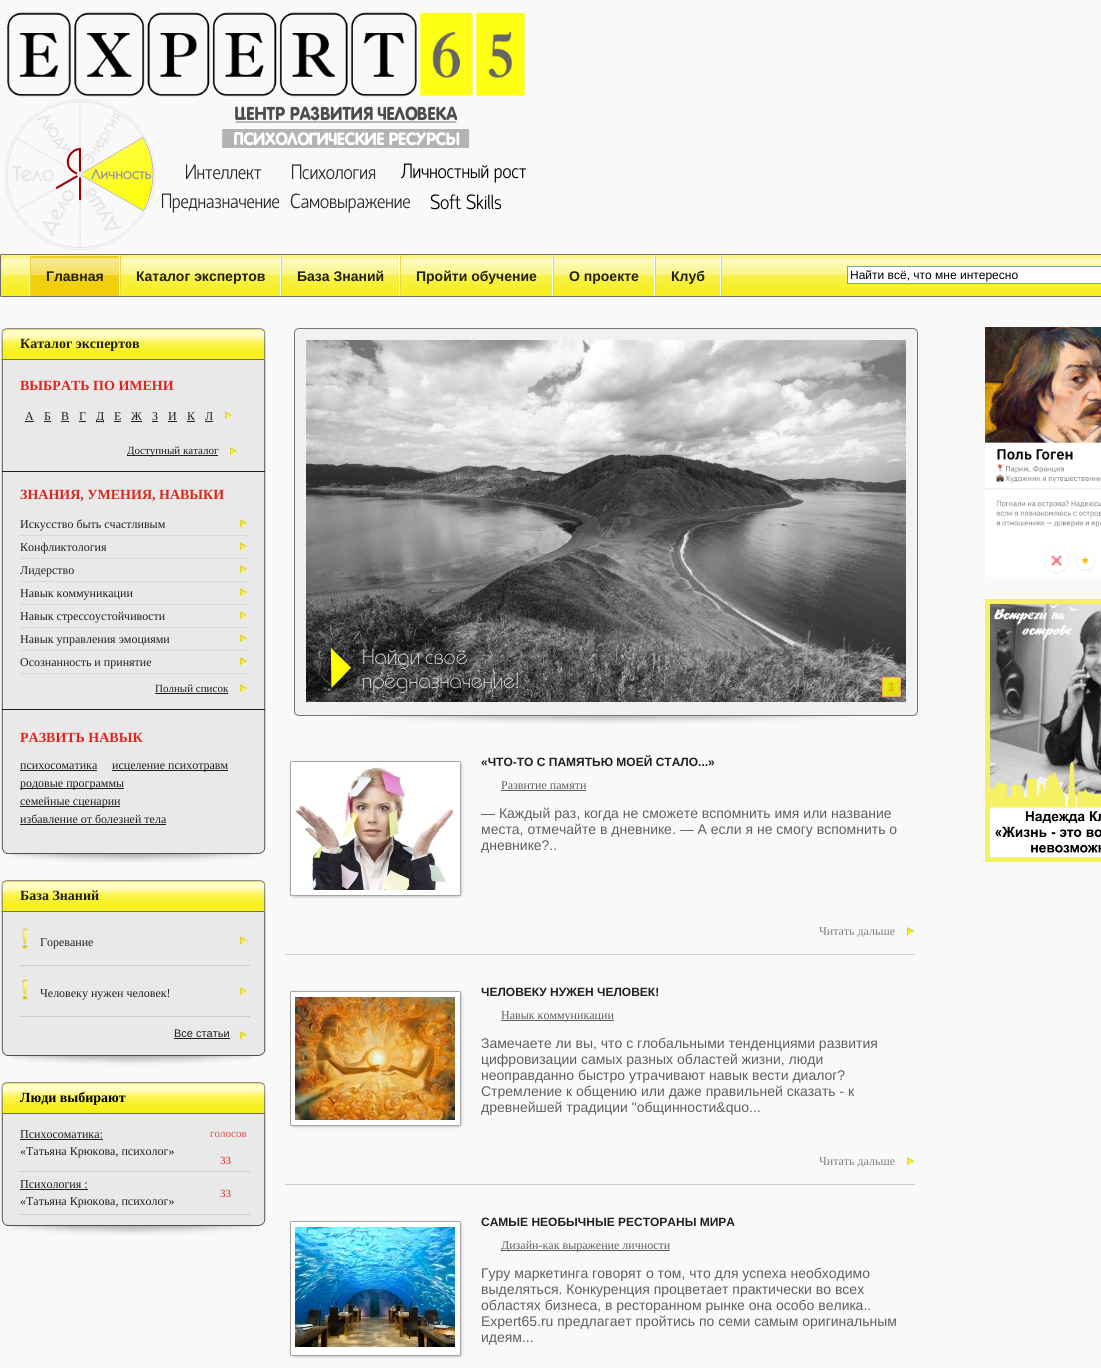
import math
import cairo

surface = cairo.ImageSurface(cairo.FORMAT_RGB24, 1101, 1368)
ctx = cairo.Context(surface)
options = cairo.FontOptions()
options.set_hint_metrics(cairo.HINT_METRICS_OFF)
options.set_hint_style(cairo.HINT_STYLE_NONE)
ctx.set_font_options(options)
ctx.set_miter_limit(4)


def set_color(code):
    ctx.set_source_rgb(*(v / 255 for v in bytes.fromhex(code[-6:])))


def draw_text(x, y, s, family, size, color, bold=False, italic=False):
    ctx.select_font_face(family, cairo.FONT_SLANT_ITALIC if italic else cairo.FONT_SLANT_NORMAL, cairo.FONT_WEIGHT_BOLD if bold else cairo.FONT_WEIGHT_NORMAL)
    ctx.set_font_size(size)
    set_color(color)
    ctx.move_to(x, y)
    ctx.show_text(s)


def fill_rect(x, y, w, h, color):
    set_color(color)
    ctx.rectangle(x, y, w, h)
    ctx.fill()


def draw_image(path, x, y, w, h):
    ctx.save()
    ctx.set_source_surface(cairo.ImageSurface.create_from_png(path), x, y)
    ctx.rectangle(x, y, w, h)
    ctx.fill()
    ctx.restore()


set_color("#f9f9f9")
ctx.paint()
draw_image("assets/img1.png", 7, 12, 518, 85)
draw_image("assets/img2.png", 4, 99, 523, 151)
draw_image("assets/img3.png", 0, 254, 9, 43)
draw_image("assets/img4.png", 9, 254, 832, 43)
draw_image("assets/img5.png", 29, 255, 2, 41)
draw_image("assets/img6.png", 31, 256, 88, 40)
draw_text(46, 281, "Главная", "Liberation Sans", 14, "#202020", bold=True)
draw_image("assets/img5.png", 119, 255, 2, 41)
draw_text(136, 281, "Каталог экспертов", "Liberation Sans", 14, "#202020", bold=True)
draw_image("assets/img5.png", 280, 255, 2, 41)
draw_text(297, 281, "База Знаний", "Liberation Sans", 14, "#202020", bold=True)
draw_image("assets/img5.png", 399, 255, 2, 41)
draw_text(416, 281, "Пройти обучение", "Liberation Sans", 14, "#202020", bold=True)
draw_image("assets/img5.png", 552, 255, 2, 41)
draw_text(569, 281, "О проекте", "Liberation Sans", 14, "#202020", bold=True)
draw_image("assets/img5.png", 654, 255, 2, 41)
draw_text(671, 281, "Клуб", "Liberation Sans", 14, "#202020", bold=True)
draw_image("assets/img5.png", 720, 255, 2, 41)
draw_image("assets/img7.png", 841, 254, 260, 43)
set_color("#ffffff")
ctx.rectangle(847.5, 266.5, 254, 17)
ctx.fill_preserve()
set_color("#7f9db9")
ctx.set_line_width(1)
ctx.stroke()
draw_text(850, 279, "Найти всё, что мне интересно", "Liberation Sans", 12, "#000000")
draw_image("assets/img8.png", 1, 328, 265, 35)
draw_text(20, 348, "Каталог экспертов", "Liberation Serif", 14, "#202020", bold=True)
draw_image("assets/img9.png", 1, 363, 265, 108)
draw_text(20, 390, "ВЫБРАТЬ ПО ИМЕНИ", "Liberation Serif", 14, "#dc261e", bold=True)
draw_text(25, 420, "А", "Liberation Serif", 12, "#202020")
fill_rect(25, 421, 9, 1, "#202020")
draw_text(44, 420, "Б", "Liberation Serif", 12, "#202020")
fill_rect(44, 421, 7, 1, "#202020")
draw_text(61, 420, "В", "Liberation Serif", 12, "#202020")
fill_rect(61, 421, 8, 1, "#202020")
draw_text(79, 420, "Г", "Liberation Serif", 12, "#202020")
fill_rect(79, 421, 7, 1, "#202020")
fill_rect(96, 421, 8, 1, "#202020")
draw_text(96, 420, "Д", "Liberation Serif", 12, "#202020")
draw_text(114, 420, "Е", "Liberation Serif", 12, "#202020")
fill_rect(114, 421, 7, 1, "#202020")
draw_text(131, 420, "Ж", "Liberation Serif", 12, "#202020")
fill_rect(131, 421, 11, 1, "#202020")
draw_text(152, 420, "З", "Liberation Serif", 12, "#202020")
fill_rect(152, 421, 6, 1, "#202020")
draw_text(168, 420, "И", "Liberation Serif", 12, "#202020")
fill_rect(168, 421, 9, 1, "#202020")
draw_text(187, 420, "К", "Liberation Serif", 12, "#202020")
fill_rect(187, 421, 8, 1, "#202020")
draw_text(205, 420, "Л", "Liberation Serif", 12, "#202020")
fill_rect(205, 421, 8, 1, "#202020")
draw_image("assets/img10.png", 225, 410, 8, 10)
draw_image("assets/img10.png", 230, 446, 8, 10)
fill_rect(127, 455, 91, 1, "#202020")
draw_text(127, 454, "Доступный каталог", "Liberation Serif", 11, "#202020")
draw_image("assets/img11.png", 1, 471, 265, 238)
fill_rect(2, 471, 263, 1, "#202020")
draw_text(20, 499, "ЗНАНИЯ, УМЕНИЯ, НАВЫКИ", "Liberation Serif", 14, "#dc261e", bold=True)
fill_rect(20, 535, 230, 1, "#d9d9d9")
draw_text(20, 528, "Искусство быть счастливым", "Liberation Serif", 12, "#202020")
draw_image("assets/img10.png", 240, 518, 8, 10)
fill_rect(20, 558, 230, 1, "#d9d9d9")
draw_text(20, 551, "Конфликтология", "Liberation Serif", 12, "#202020")
draw_image("assets/img10.png", 240, 541, 8, 10)
fill_rect(20, 581, 230, 1, "#d9d9d9")
draw_text(20, 574, "Лидерство", "Liberation Serif", 12, "#202020")
draw_image("assets/img10.png", 240, 564, 8, 10)
fill_rect(20, 604, 230, 1, "#d9d9d9")
draw_text(20, 597, "Навык коммуникации", "Liberation Serif", 12, "#202020")
draw_image("assets/img10.png", 240, 587, 8, 10)
fill_rect(20, 627, 230, 1, "#d9d9d9")
draw_text(20, 620, "Навык стрессоустойчивости", "Liberation Serif", 12, "#202020")
draw_image("assets/img10.png", 240, 610, 8, 10)
fill_rect(20, 650, 230, 1, "#d9d9d9")
draw_text(20, 643, "Навык управления эмоциями", "Liberation Serif", 12, "#202020")
draw_image("assets/img10.png", 240, 633, 8, 10)
fill_rect(20, 673, 230, 1, "#d9d9d9")
draw_text(20, 666, "Осознанность и принятие", "Liberation Serif", 12, "#202020")
draw_image("assets/img10.png", 240, 656, 8, 10)
draw_image("assets/img10.png", 240, 683, 8, 10)
draw_text(155, 692, "Полный список", "Liberation Serif", 11, "#202020")
fill_rect(155, 693, 73, 1, "#202020")
draw_image("assets/img12.png", 1, 709, 265, 134)
fill_rect(2, 709, 263, 1, "#202020")
draw_text(20, 742, "РАЗВИТЬ НАВЫК", "Liberation Serif", 14, "#dc261e", bold=True)
draw_text(20, 769, "психосоматика", "Liberation Serif", 12, "#202020")
fill_rect(20, 770, 77, 1, "#202020")
fill_rect(112, 770, 116, 1, "#202020")
draw_text(112, 769, "исцеление психотравм", "Liberation Serif", 12, "#202020")
fill_rect(20, 788, 104, 1, "#202020")
draw_text(20, 787, "родовые программы", "Liberation Serif", 12, "#202020")
fill_rect(20, 806, 100, 1, "#202020")
draw_text(20, 805, "семейные сценарии", "Liberation Serif", 12, "#202020")
draw_text(20, 823, "избавление от болезней тела", "Liberation Serif", 12, "#202020")
fill_rect(20, 824, 146, 1, "#202020")
draw_image("assets/img13.png", 1, 843, 265, 20)
draw_image("assets/img8.png", 1, 880, 265, 35)
draw_text(20, 900, "База Знаний", "Liberation Serif", 14, "#202020", bold=True)
draw_image("assets/img14.png", 1, 915, 265, 130)
fill_rect(20, 965, 230, 1, "#cccccc")
draw_image("assets/img15.png", 20, 927, 8, 22)
draw_text(40, 946, "Горевание", "Liberation Serif", 12, "#202020")
draw_image("assets/img10.png", 240, 935, 8, 10)
fill_rect(20, 1016, 230, 1, "#cccccc")
draw_image("assets/img15.png", 20, 978, 8, 22)
draw_text(40, 997, "Человеку нужен человек!", "Liberation Serif", 12, "#202020")
draw_image("assets/img10.png", 240, 986, 8, 10)
draw_text(174, 1037, "Все статьи", "Liberation Sans", 11, "#202020")
fill_rect(174, 1038, 56, 1, "#202020")
draw_image("assets/img10.png", 240, 1030, 8, 10)
draw_image("assets/img13.png", 1, 1045, 265, 20)
draw_image("assets/img8.png", 1, 1082, 265, 35)
draw_text(20, 1102, "Люди выбирают", "Liberation Serif", 14, "#000000", bold=True)
draw_image("assets/img16.png", 1, 1117, 265, 98)
fill_rect(20, 1171, 230, 1, "#cccccc")
draw_text(20, 1138, "Психосоматика:", "Liberation Serif", 12, "#202020")
fill_rect(20, 1139, 83, 1, "#202020")
draw_text(20, 1155, "«Татьяна Крюкова, психолог»", "Liberation Serif", 12, "#202020")
draw_text(220, 1164, "33", "Liberation Serif", 11, "#dc261e")
draw_text(210, 1137, "голосов", "Liberation Serif", 11, "#e0524c")
fill_rect(20, 1214, 230, 1, "#cccccc")
draw_text(20, 1188, "Психология :", "Liberation Serif", 12, "#202020")
fill_rect(20, 1189, 68, 1, "#202020")
draw_text(20, 1205, "«Татьяна Крюкова, психолог»", "Liberation Serif", 12, "#202020")
draw_text(220, 1197, "33", "Liberation Serif", 11, "#dc261e")
draw_image("assets/img13.png", 1, 1215, 265, 20)
draw_image("assets/img17.png", 294, 328, 624, 396)
draw_image("assets/img18.png", 306, 340, 600, 362)
ctx.set_source_rgba(1, 1, 0, 0.8)
ctx.rectangle(882, 677, 19, 20)
ctx.fill()
ctx.rectangle(882.5, 677.5, 18, 19)
ctx.set_source_rgba(1, 0.6, 0.4, 0.8)
ctx.stroke()
draw_text(888, 691, "1", "Liberation Sans", 12, "#f8a703", bold=True)
draw_image("assets/img19.png", 289, 760, 175, 139)
draw_image("assets/img20.png", 295, 767, 159, 123)
draw_text(481, 766, "«ЧТО-ТО С ПАМЯТЬЮ МОЕЙ СТАЛО...»", "Liberation Sans", 12, "#202020", bold=True)
draw_text(501, 789, "Развитие памяти", "Liberation Serif", 12, "#606060")
fill_rect(501, 790, 85, 1, "#606060")
draw_text(481, 818, "— Каждый раз, когда не сможете вспомнить имя или название", "Liberation Sans", 14, "#606060")
draw_text(481, 834, "места, отмечайте в дневнике. — А если я не смогу вспомнить о", "Liberation Sans", 14, "#606060")
draw_text(481, 850, "дневнике?..", "Liberation Sans", 14, "#606060")
fill_rect(285, 954, 630, 1, "#cccccc")
draw_image("assets/img21.png", 907, 927, 8, 9)
draw_text(819, 935, "Читать дальше", "Liberation Serif", 12, "#808080")
draw_image("assets/img19.png", 289, 990, 175, 139)
draw_image("assets/img22.png", 295, 997, 160, 123)
draw_text(481, 996, "ЧЕЛОВЕКУ НУЖЕН ЧЕЛОВЕК!", "Liberation Sans", 12, "#202020", bold=True)
fill_rect(501, 1020, 113, 1, "#606060")
draw_text(501, 1019, "Навык коммуникации", "Liberation Serif", 12, "#606060")
draw_text(481, 1048, "Замечаете ли вы, что с глобальными тенденциями развития", "Liberation Sans", 14, "#606060")
draw_text(481, 1064, "цифровизации самых разных областей жизни, люди", "Liberation Sans", 14, "#606060")
draw_text(481, 1080, "неоправданно быстро утрачивают навык вести диалог?", "Liberation Sans", 14, "#606060")
draw_text(481, 1096, "Стремление к общению или даже правильней сказать - к", "Liberation Sans", 14, "#606060")
draw_text(481, 1112, "древнейшей традиции \"общинности&quo...", "Liberation Sans", 14, "#606060")
fill_rect(285, 1184, 630, 1, "#cccccc")
draw_image("assets/img21.png", 907, 1157, 8, 9)
draw_text(819, 1165, "Читать дальше", "Liberation Serif", 12, "#808080")
draw_image("assets/img19.png", 289, 1220, 175, 139)
draw_image("assets/img23.png", 295, 1227, 160, 120)
draw_text(481, 1226, "САМЫЕ НЕОБЫЧНЫЕ РЕСТОРАНЫ МИРА", "Liberation Sans", 12, "#202020", bold=True)
fill_rect(501, 1250, 169, 1, "#606060")
draw_text(501, 1249, "Дизайн-как выражение личности", "Liberation Serif", 12, "#606060")
draw_text(481, 1278, "Гуру маркетинга говорят о том, что для успеха необходимо", "Liberation Sans", 14, "#606060")
draw_text(481, 1294, "выделяться. Конкуренция процветает практически во всех", "Liberation Sans", 14, "#606060")
draw_text(481, 1310, "областях бизнеса, в ресторанном рынке она особо велика..", "Liberation Sans", 14, "#606060")
draw_text(481, 1326, "Expert65.ru предлагает пройтись по семи самым оригинальным", "Liberation Sans", 14, "#606060")
draw_text(481, 1342, "идеям...", "Liberation Sans", 14, "#606060")
draw_image("assets/img24.png", 985, 327, 116, 250)
draw_image("assets/img25.png", 985, 599, 116, 263)
surface.write_to_png("output.png")
